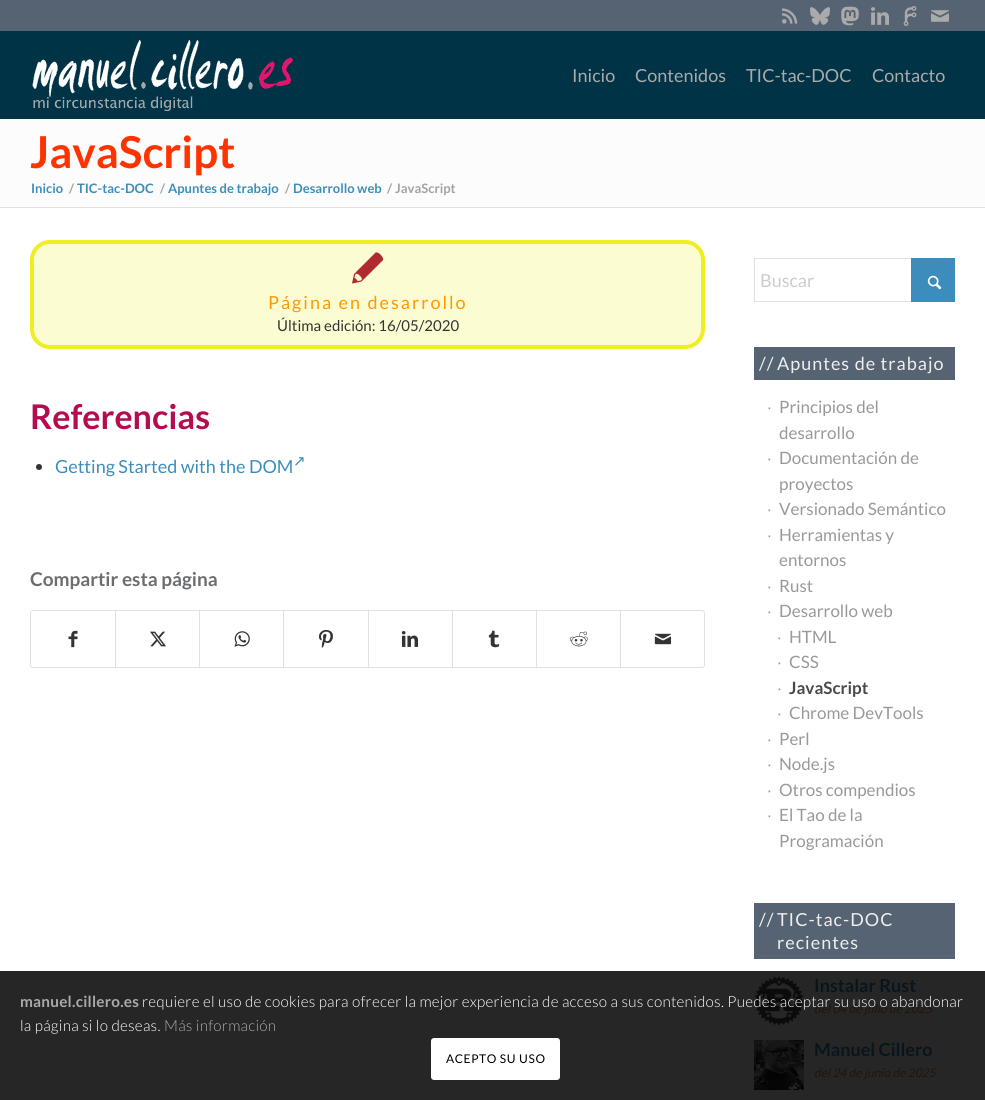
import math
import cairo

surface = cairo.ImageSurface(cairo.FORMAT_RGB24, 985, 1100)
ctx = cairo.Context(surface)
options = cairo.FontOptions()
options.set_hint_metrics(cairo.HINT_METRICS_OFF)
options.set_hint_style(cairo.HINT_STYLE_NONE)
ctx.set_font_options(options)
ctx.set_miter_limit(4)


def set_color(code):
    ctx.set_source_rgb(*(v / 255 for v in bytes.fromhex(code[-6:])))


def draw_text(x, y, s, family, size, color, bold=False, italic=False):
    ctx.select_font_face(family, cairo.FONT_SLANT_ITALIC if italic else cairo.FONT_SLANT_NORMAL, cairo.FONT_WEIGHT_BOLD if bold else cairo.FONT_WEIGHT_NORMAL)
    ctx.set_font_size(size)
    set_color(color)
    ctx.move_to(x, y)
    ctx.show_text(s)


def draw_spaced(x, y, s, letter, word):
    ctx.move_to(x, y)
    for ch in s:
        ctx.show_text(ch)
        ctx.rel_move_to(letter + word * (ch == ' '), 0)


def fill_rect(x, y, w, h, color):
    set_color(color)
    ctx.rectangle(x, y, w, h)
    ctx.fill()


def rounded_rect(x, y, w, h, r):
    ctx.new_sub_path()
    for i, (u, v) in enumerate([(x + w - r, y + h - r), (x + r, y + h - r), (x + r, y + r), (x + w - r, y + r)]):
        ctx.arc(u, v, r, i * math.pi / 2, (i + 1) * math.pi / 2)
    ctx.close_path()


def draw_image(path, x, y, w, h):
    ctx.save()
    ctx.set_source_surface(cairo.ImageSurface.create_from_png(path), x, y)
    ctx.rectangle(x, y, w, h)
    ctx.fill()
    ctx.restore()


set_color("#fcfcfc")
ctx.paint()
fill_rect(0, 0, 985, 31, "#556372")
draw_image("assets/img1.png", 782, 8, 16, 16)
draw_image("assets/img2.png", 810, 7, 20, 18)
draw_image("assets/img3.png", 841, 6, 18, 20)
draw_image("assets/img4.png", 871, 7, 18, 18)
draw_image("assets/img5.png", 903, 6, 14, 20)
draw_image("assets/img6.png", 931, 10, 18, 12)
fill_rect(0, 31, 985, 88, "#003346")
draw_image("assets/img7.png", 32, 40, 261, 71)
draw_text(572, 82, "Inicio", "Lato", 18, "#aaaaaa")
draw_text(635, 82, "Contenidos", "Lato", 18, "#aaaaaa")
draw_text(746, 82, "TIC-tac-DOC", "Lato", 18, "#aaaaaa")
draw_text(872, 82, "Contacto", "Lato", 18, "#aaaaaa")
draw_text(30, 168, "JavaScript", "Lato", 44, "#ff3300", bold=True)
draw_text(31, 193, "Inicio", "Lato", 13, "#3c8dbc", bold=True)
draw_text(69, 193, "/", "Lato", 13, "#a2a2a2", bold=True)
draw_text(77, 193, "TIC-tac-DOC", "Lato", 13, "#3c8dbc", bold=True)
draw_text(160, 193, "/", "Lato", 13, "#a2a2a2", bold=True)
draw_text(168, 193, "Apuntes de trabajo", "Lato", 13, "#3c8dbc", bold=True)
draw_text(285, 193, "/", "Lato", 13, "#a2a2a2", bold=True)
draw_text(293, 193, "Desarrollo web", "Lato", 13, "#3c8dbc", bold=True)
draw_text(387, 193, "/", "Lato", 13, "#a2a2a2", bold=True)
draw_text(395, 193, "JavaScript", "Lato", 13, "#a2a2a2", bold=True)
fill_rect(0, 207, 985, 1, "#e1e1e1")
fill_rect(0, 208, 985, 763, "#ffffff")
fill_rect(0, 971, 985, 129, "#262626")
set_color("#fcfcd3")
rounded_rect(32, 242, 671, 105, 18)
ctx.fill_preserve()
set_color("#eeee22")
ctx.set_line_width(4)
ctx.stroke()
draw_image("assets/img8.png", 352, 252, 32, 32)
ctx.select_font_face("Lato")
ctx.set_font_size(18)
set_color("#ff9900")
draw_spaced(268, 309, "Página en desarrollo", 2, 0)
draw_text(277, 331, "Última edición: 16/05/2020", "Lato", 15, "#333333")
draw_text(30, 429, "Referencias", "Lato", 34, "#b40b51", bold=True)
set_color("#333333")
ctx.new_path()
ctx.arc(39, 467, 3, 0, 2 * math.pi)
ctx.fill()
draw_text(55, 473, "Getting Started with the DOM", "Lato", 18, "#3c8dbc")
draw_text(293, 466, "↗", "DejaVu Sans", 15, "#3c8dbc")
draw_text(30, 586, "Compartir esta página", "Lato", 19, "#6a6e71", bold=True)
rounded_rect(30.5, 610.5, 674, 57, 2.5)
set_color("#e1e1e1")
ctx.set_line_width(1)
ctx.stroke()
draw_image("assets/img9.png", 68, 630, 10, 18)
fill_rect(115, 611, 1, 56, "#e1e1e1")
draw_image("assets/img10.png", 150, 631, 16, 16)
fill_rect(199, 611, 1, 56, "#e1e1e1")
draw_image("assets/img11.png", 234, 631, 16, 16)
fill_rect(283, 611, 1, 56, "#e1e1e1")
draw_image("assets/img12.png", 319, 630, 14, 18)
fill_rect(368, 611, 1, 56, "#e1e1e1")
draw_image("assets/img13.png", 401, 631, 18, 16)
fill_rect(452, 611, 1, 56, "#e1e1e1")
draw_image("assets/img14.png", 488, 630, 11, 18)
fill_rect(536, 611, 1, 56, "#e1e1e1")
draw_image("assets/img15.png", 570, 631, 18, 16)
fill_rect(620, 611, 1, 56, "#e1e1e1")
draw_image("assets/img16.png", 654, 633, 18, 12)
ctx.rectangle(754.5, 258.5, 200, 43)
ctx.stroke()
draw_text(760, 287, "Buscar", "Lato", 18, "#cccccc")
fill_rect(911, 258, 44, 44, "#3c8dbc")
draw_image("assets/img17.png", 927, 275, 15, 15)
fill_rect(754, 347, 201, 33, "#556372")
set_color("#eeeeee")
draw_spaced(759, 370, "//", 1, 0)
draw_spaced(777, 370, "Apuntes de trabajo", 1, 0)
draw_text(767, 413, "∙", "Liberation Sans", 17, "#999999")
draw_text(779, 413, "Principios del", "Lato", 17, "#999999")
draw_text(779, 439, "desarrollo", "Lato", 17, "#999999")
draw_text(767, 464, "∙", "Liberation Sans", 17, "#999999")
draw_text(779, 464, "Documentación de", "Lato", 17, "#999999")
draw_text(779, 490, "proyectos", "Lato", 17, "#999999")
draw_text(767, 515, "∙", "Liberation Sans", 17, "#999999")
draw_text(779, 515, "Versionado Semántico", "Lato", 17, "#999999")
draw_text(767, 541, "∙", "Liberation Sans", 17, "#999999")
draw_text(779, 541, "Herramientas y", "Lato", 17, "#999999")
draw_text(779, 566, "entornos", "Lato", 17, "#999999")
draw_text(767, 592, "∙", "Liberation Sans", 17, "#999999")
draw_text(779, 592, "Rust", "Lato", 17, "#999999")
draw_text(767, 617, "∙", "Liberation Sans", 17, "#999999")
draw_text(779, 617, "Desarrollo web", "Lato", 17, "#999999")
draw_text(777, 643, "∙", "Liberation Sans", 17, "#999999")
draw_text(789, 643, "HTML", "Lato", 17, "#999999")
draw_text(777, 668, "∙", "Liberation Sans", 17, "#999999")
draw_text(789, 668, "CSS", "Lato", 17, "#999999")
draw_text(777, 694, "∙", "Liberation Sans", 17, "#999999")
draw_text(789, 694, "JavaScript", "Lato", 17, "#494949", bold=True)
draw_text(777, 719, "∙", "Liberation Sans", 17, "#999999")
draw_text(789, 719, "Chrome DevTools", "Lato", 17, "#999999")
draw_text(767, 745, "∙", "Liberation Sans", 17, "#999999")
draw_text(779, 745, "Perl", "Lato", 17, "#999999")
draw_text(767, 770, "∙", "Liberation Sans", 17, "#999999")
draw_text(779, 770, "Node.js", "Lato", 17, "#999999")
draw_text(767, 796, "∙", "Liberation Sans", 17, "#999999")
draw_text(779, 796, "Otros compendios", "Lato", 17, "#999999")
draw_text(767, 821, "∙", "Liberation Sans", 17, "#999999")
draw_text(779, 821, "El Tao de la", "Lato", 17, "#999999")
draw_text(779, 847, "Programación", "Lato", 17, "#999999")
fill_rect(754, 903, 201, 56, "#556372")
ctx.set_font_size(18)
set_color("#eeeeee")
draw_spaced(759, 926, "//", 1, 0)
draw_spaced(777, 926, "TIC-tac-DOC", 1, 0)
draw_spaced(777, 949, "recientes", 1, 0)
draw_image("assets/img18.png", 754, 976, 50, 50)
draw_text(814, 992, "Instalar Rust", "Lato", 18, "#09151c", bold=True)
draw_text(814, 1013, "del 04 de julio de 2025", "Lato", 12, "#221506", italic=True)
draw_image("assets/img19.png", 754, 1040, 50, 50)
draw_text(814, 1056, "Manuel Cillero", "Lato", 18, "#09151c", bold=True)
draw_text(814, 1077, "del 24 de junio de 2025", "Lato", 12, "#221506", italic=True)
ctx.select_font_face("Lato", cairo.FONT_SLANT_NORMAL, cairo.FONT_WEIGHT_BOLD)
ctx.set_font_size(15.3)
set_color("#aaaaaa")
draw_spaced(20, 1007, "manuel.cillero.es", 0.23, 0)
ctx.select_font_face("Lato Light")
set_color("#ffffff")
draw_spaced(142, 1007, "requiere el uso de cookies para ofrecer la mejor experiencia de acceso a sus contenidos. Puedes aceptar su uso o abandonar", 0.23, 0)
draw_spaced(20, 1031, "la página si lo deseas.", 0.23, 0)
set_color("#aaaaaa")
draw_spaced(164, 1031, "Más información", 0.23, 0)
set_color("#ffffff")
rounded_rect(431, 1038, 129, 42, 3)
ctx.fill()
ctx.select_font_face("Lato")
ctx.set_font_size(12)
set_color("#000000")
draw_spaced(446, 1063, "ACEPTO SU USO", 0.6, 0)
surface.write_to_png("output.png")
